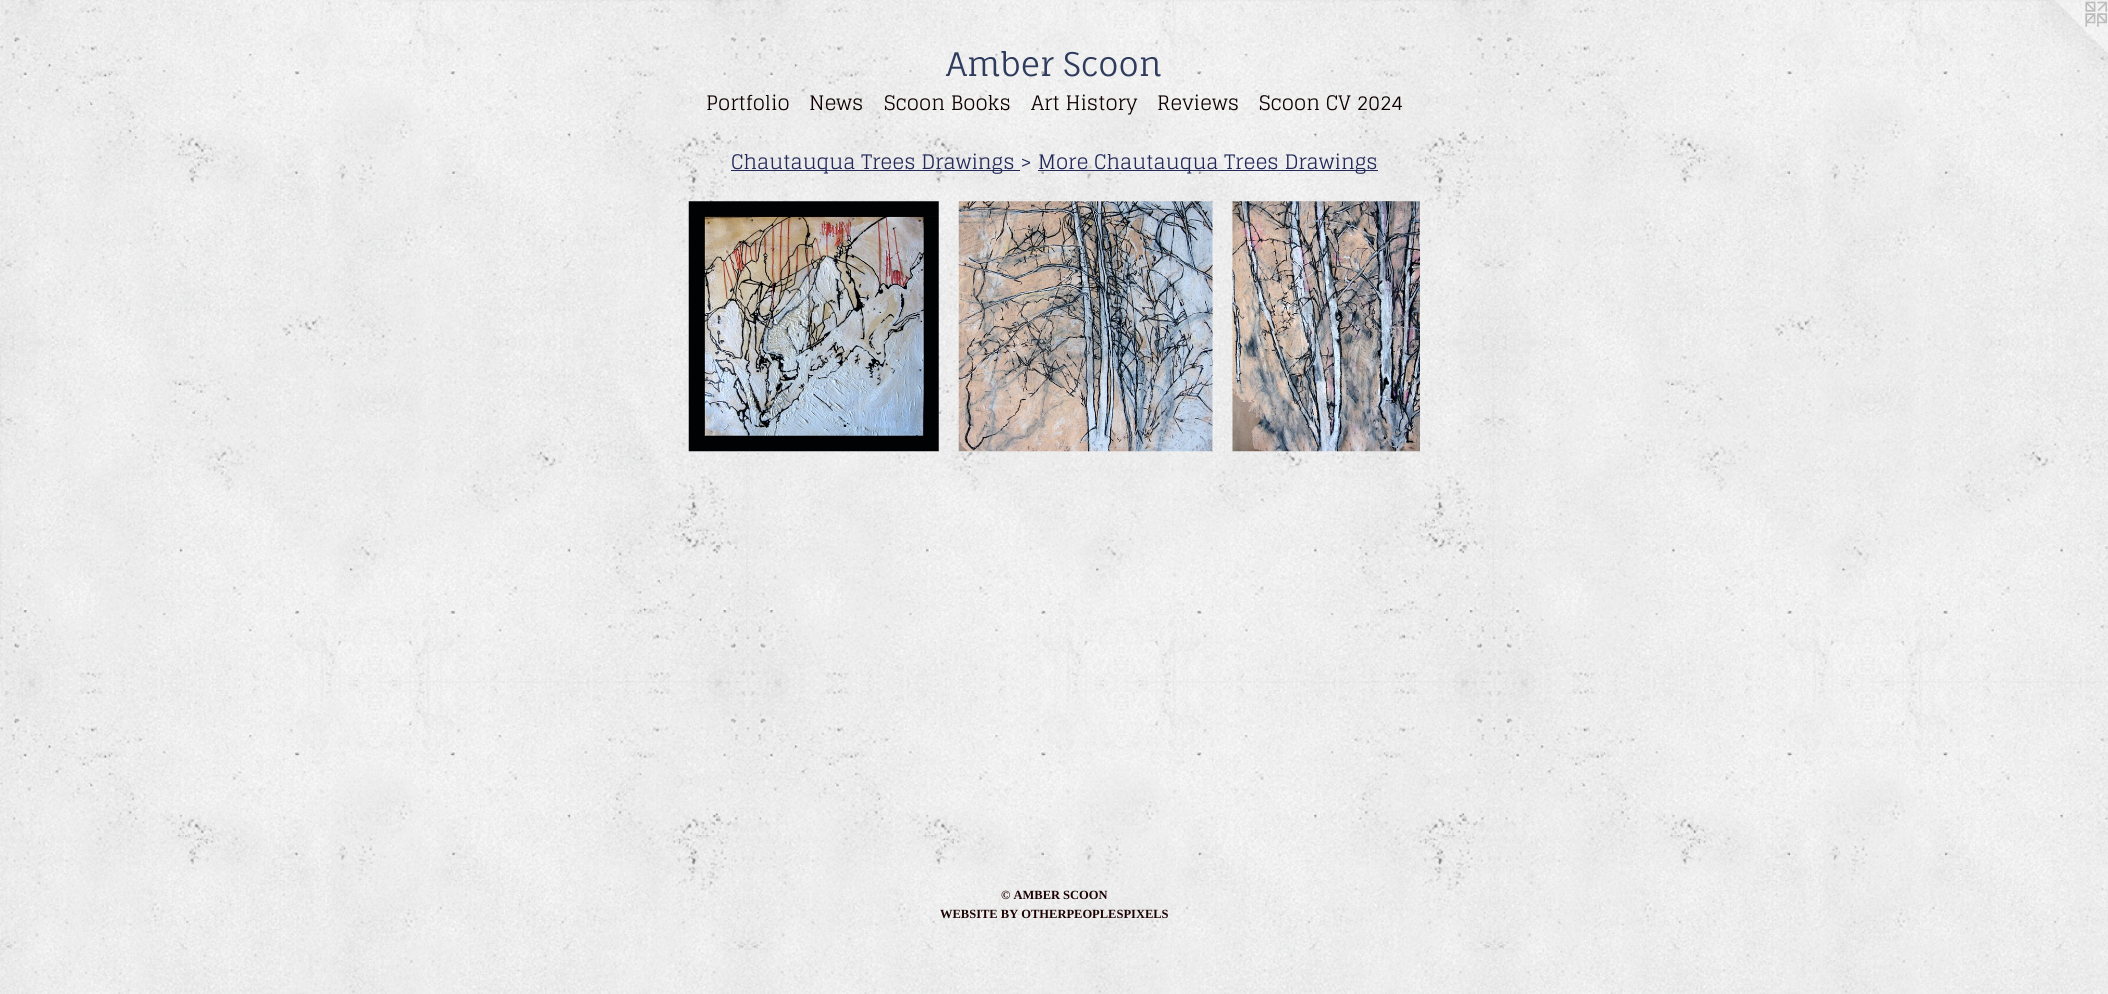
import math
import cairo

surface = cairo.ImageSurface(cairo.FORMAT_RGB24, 2108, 994)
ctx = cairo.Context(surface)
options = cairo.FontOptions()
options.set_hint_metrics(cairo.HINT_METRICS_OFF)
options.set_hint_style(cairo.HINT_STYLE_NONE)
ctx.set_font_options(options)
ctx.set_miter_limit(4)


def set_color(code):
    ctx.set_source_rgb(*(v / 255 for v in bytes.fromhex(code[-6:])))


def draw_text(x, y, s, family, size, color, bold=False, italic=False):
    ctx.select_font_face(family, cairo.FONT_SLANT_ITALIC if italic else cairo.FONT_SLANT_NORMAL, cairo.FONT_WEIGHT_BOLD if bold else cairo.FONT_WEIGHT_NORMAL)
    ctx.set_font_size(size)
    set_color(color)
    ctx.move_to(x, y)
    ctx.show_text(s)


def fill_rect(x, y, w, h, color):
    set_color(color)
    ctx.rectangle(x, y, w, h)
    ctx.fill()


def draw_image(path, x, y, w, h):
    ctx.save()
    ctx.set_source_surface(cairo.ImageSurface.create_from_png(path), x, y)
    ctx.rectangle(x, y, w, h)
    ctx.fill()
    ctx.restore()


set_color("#ffffff")
ctx.paint()
draw_image("assets/img1.png", 0, 0, 2108, 994)
draw_text(946, 76, "Amber Scoon", "Fauna One", 32.5, "#2e3b5c")
draw_image("assets/img2.png", 2039, 0, 69, 69)
draw_text(706, 110, "Portfolio", "Glegoo", 20, "#0f0101")
draw_text(809, 110, "News", "Glegoo", 20, "#0f0101")
draw_text(884, 110, "Scoon Books", "Glegoo", 20, "#0f0101")
draw_text(1031, 110, "Art History", "Glegoo", 20, "#0f0101")
draw_text(1157, 110, "Reviews", "Glegoo", 20, "#0f0101")
draw_text(1259, 110, "Scoon CV 2024", "Glegoo", 20, "#0f0101")
fill_rect(731, 170, 289, 1, "#232958")
draw_text(731, 169, "Chautauqua Trees Drawings >", "Glegoo", 20, "#232958")
fill_rect(1038, 170, 340, 1, "#232958")
draw_text(1038, 169, "More Chautauqua Trees Drawings", "Glegoo", 20, "#232958")
draw_image("assets/img3.png", 688, 201, 251, 251)
draw_image("assets/img4.png", 958, 201, 255, 251)
draw_image("assets/img5.png", 1232, 201, 188, 251)
draw_text(1001, 899, "© AMBER SCOON", "Liberation Serif", 12.5, "#1d0202", bold=True)
draw_text(940, 918, "WEBSITE BY OTHERPEOPLESPIXELS", "Liberation Serif", 12.5, "#1d0202", bold=True)
surface.write_to_png("output.png")
